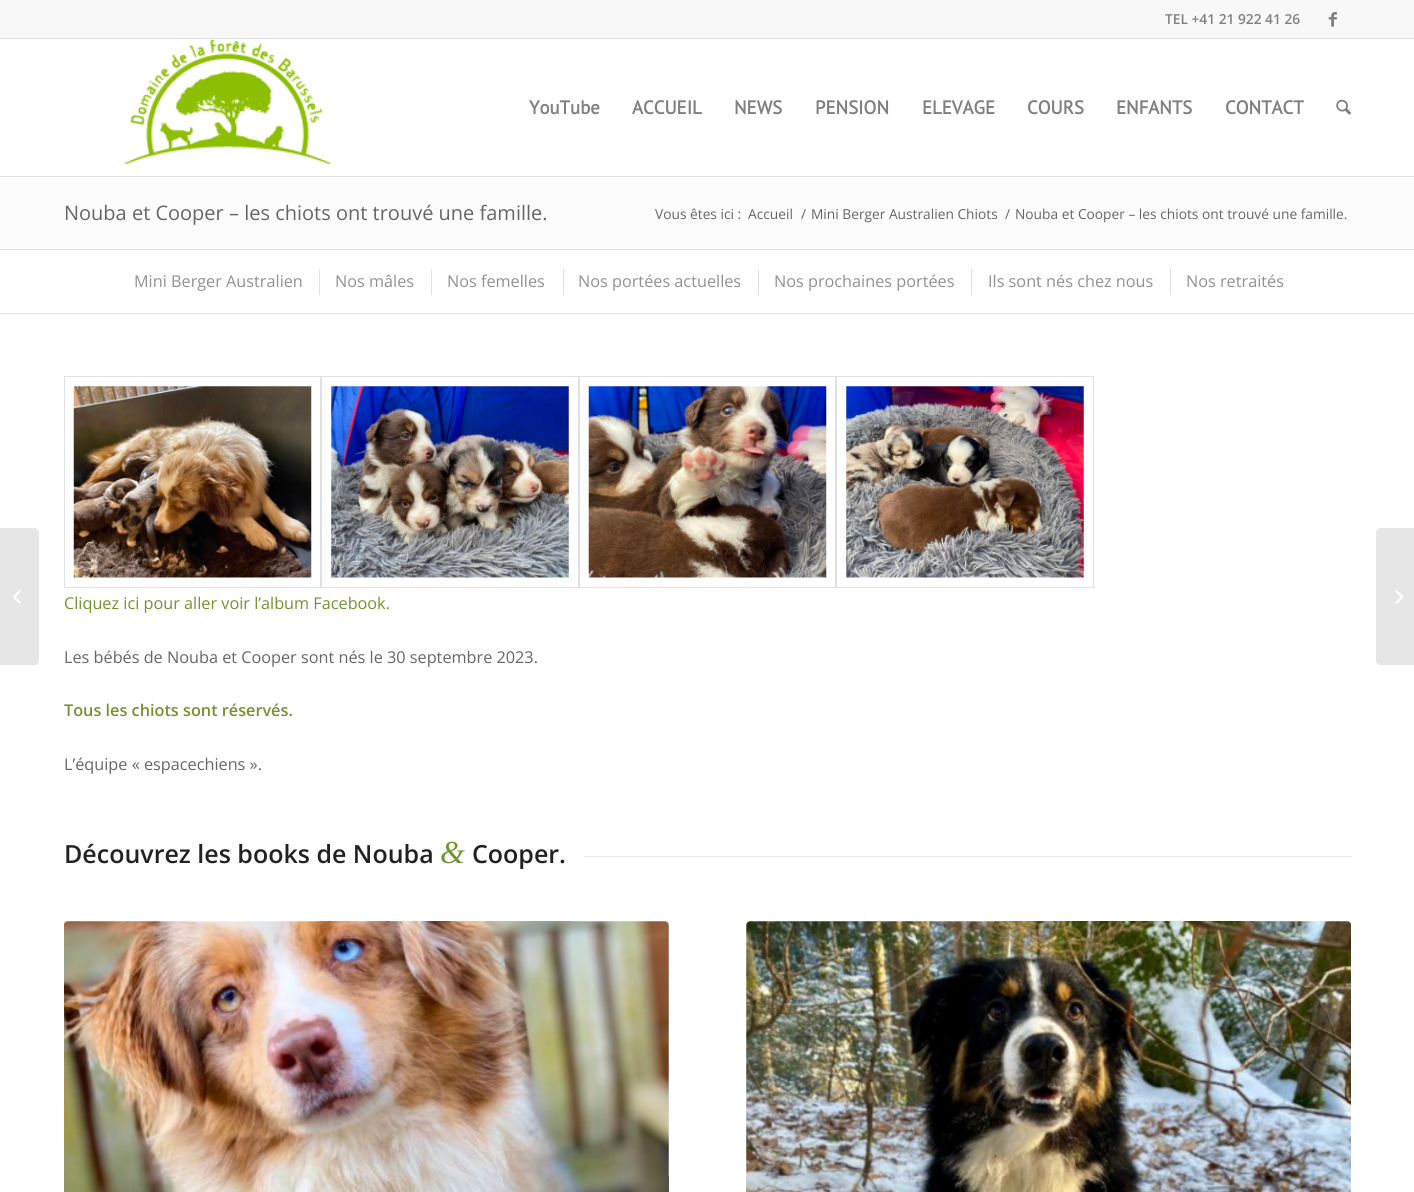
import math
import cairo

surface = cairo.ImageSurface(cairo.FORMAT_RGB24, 1414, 1192)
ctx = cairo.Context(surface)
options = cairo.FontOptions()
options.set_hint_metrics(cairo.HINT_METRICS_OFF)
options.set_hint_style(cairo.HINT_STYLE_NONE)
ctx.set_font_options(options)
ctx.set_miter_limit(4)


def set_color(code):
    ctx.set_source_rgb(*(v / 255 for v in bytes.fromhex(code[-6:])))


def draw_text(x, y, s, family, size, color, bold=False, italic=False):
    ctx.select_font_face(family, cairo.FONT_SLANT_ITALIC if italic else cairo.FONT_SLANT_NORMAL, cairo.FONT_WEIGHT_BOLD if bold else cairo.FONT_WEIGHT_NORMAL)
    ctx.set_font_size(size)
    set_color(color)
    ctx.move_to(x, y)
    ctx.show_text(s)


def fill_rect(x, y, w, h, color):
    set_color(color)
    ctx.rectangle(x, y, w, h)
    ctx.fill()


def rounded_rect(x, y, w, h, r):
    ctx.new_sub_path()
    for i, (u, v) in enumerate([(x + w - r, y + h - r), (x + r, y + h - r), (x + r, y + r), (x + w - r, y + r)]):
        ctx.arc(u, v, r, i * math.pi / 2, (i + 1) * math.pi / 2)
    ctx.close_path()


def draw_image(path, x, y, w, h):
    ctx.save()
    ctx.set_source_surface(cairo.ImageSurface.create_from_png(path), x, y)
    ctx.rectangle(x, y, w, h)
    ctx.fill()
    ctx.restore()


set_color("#ffffff")
ctx.paint()
fill_rect(0, 0, 1414, 38, "#f8f8f8")
fill_rect(0, 38, 1414, 1, "#e1e1e1")
draw_text(1165, 24, "TEL +41 21 922 41 26", "Open Sans SemiBold", 13.75, "#808080")
draw_image("assets/img1.png", 1328, 12, 9, 15)
fill_rect(0, 176, 1414, 1, "#e1e1e1")
draw_image("assets/img2.png", 123, 39, 209, 125)
draw_text(529, 114, "YouTube", "PT Sans", 18.75, "#808080", bold=True)
draw_text(632, 114, "ACCUEIL", "PT Sans", 18.75, "#808080", bold=True)
draw_text(734, 114, "NEWS", "PT Sans", 18.75, "#808080", bold=True)
draw_text(815, 114, "PENSION", "PT Sans", 18.75, "#808080", bold=True)
draw_text(922, 114, "ELEVAGE", "PT Sans", 18.75, "#808080", bold=True)
draw_text(1027, 114, "COURS", "PT Sans", 18.75, "#808080", bold=True)
draw_text(1116, 114, "ENFANTS", "PT Sans", 18.75, "#808080", bold=True)
draw_text(1225, 114, "CONTACT", "PT Sans", 18.75, "#808080", bold=True)
draw_image("assets/img3.png", 1336, 99, 15, 16)
set_color("#e6e6e6")
ctx.new_path()
ctx.move_to(0, 528)
ctx.line_to(34, 528)
ctx.curve_to(37, 528, 39, 530, 39, 533)
ctx.line_to(39, 660)
ctx.curve_to(39, 663, 37, 665, 34, 665)
ctx.line_to(0, 665)
ctx.close_path()
ctx.fill()
draw_image("assets/img4.png", 13, 590, 8, 14)
fill_rect(0, 178, 1414, 71, "#fcfcfc")
draw_text(64, 220, "Nouba et Cooper – les chiots ont trouvé une famille.", "Open Sans", 20, "#666666")
draw_text(655, 219, "Vous êtes ici :", "Open Sans", 13.75, "#666666")
draw_text(748, 219, "Accueil", "Open Sans", 13.75, "#666666")
draw_text(801, 219, "/", "Open Sans", 13.75, "#666666")
draw_text(811, 219, "Mini Berger Australien Chiots", "Open Sans", 13.75, "#666666")
draw_text(1005, 219, "/", "Open Sans", 13.75, "#666666")
draw_text(1015, 219, "Nouba et Cooper – les chiots ont trouvé une famille.", "Open Sans", 13.75, "#666666")
fill_rect(0, 249, 1414, 1, "#e1e1e1")
fill_rect(0, 313, 1414, 1, "#e1e1e1")
draw_text(134, 287, "Mini Berger Australien", "Open Sans", 16.25, "#919191")
fill_rect(319, 269, 1, 26, "#e1e1e1")
draw_text(335, 287, "Nos mâles", "Open Sans", 16.25, "#919191")
fill_rect(431, 269, 1, 26, "#e1e1e1")
draw_text(447, 287, "Nos femelles", "Open Sans", 16.25, "#919191")
fill_rect(563, 269, 1, 26, "#e1e1e1")
draw_text(578, 287, "Nos portées actuelles", "Open Sans", 16.25, "#919191")
fill_rect(758, 269, 1, 26, "#e1e1e1")
draw_text(774, 287, "Nos prochaines portées", "Open Sans", 16.25, "#919191")
fill_rect(971, 269, 1, 26, "#e1e1e1")
draw_text(988, 287, "Ils sont nés chez nous", "Open Sans", 16.25, "#919191")
fill_rect(1170, 269, 1, 26, "#e1e1e1")
draw_text(1186, 287, "Nos retraités", "Open Sans", 16.25, "#919191")
ctx.rectangle(64.5, 376.5, 256, 211)
set_color("#e1e1e1")
ctx.set_line_width(1)
ctx.stroke()
draw_image("assets/img5.png", 73, 386, 239, 192)
ctx.rectangle(321.5, 376.5, 257, 211)
ctx.stroke()
draw_image("assets/img6.png", 331, 386, 238, 192)
ctx.rectangle(579.5, 376.5, 256, 211)
ctx.stroke()
draw_image("assets/img7.png", 588, 386, 239, 192)
ctx.rectangle(836.5, 376.5, 257, 211)
ctx.stroke()
draw_image("assets/img8.png", 846, 386, 238, 192)
draw_text(64, 609, "Cliquez ici pour aller voir l’album Facebook.", "Open Sans", 16.25, "#719430")
draw_text(64, 663, "Les bébés de Nouba et Cooper sont nés le 30 septembre 2023.", "Open Sans", 16.25, "#666666")
draw_text(64, 716, "Tous les chiots sont réservés.", "Open Sans SemiBold", 16.25, "#719430")
draw_text(64, 770, "L’équipe « espacechiens ».", "Open Sans", 16.25, "#666666")
draw_text(64, 863, "Découvrez les books de Nouba", "Open Sans SemiBold", 25, "#222222")
draw_text(440, 863, "&", "Liberation Serif", 32, "#719430", italic=True)
draw_text(472, 863, "Cooper.", "Open Sans SemiBold", 25, "#222222")
fill_rect(585, 856, 766, 1, "#e8e8e8")
set_color("#fcfcfc")
rounded_rect(64, 921, 605, 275, 4)
ctx.fill()
draw_image("assets/img9.png", 64, 921, 605, 271)
rounded_rect(746, 921, 605, 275, 4)
ctx.fill()
draw_image("assets/img10.png", 746, 921, 605, 271)
set_color("#e6e6e6")
ctx.new_path()
ctx.move_to(1381, 528)
ctx.line_to(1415, 528)
ctx.line_to(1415, 665)
ctx.line_to(1381, 665)
ctx.curve_to(1378, 665, 1376, 663, 1376, 660)
ctx.line_to(1376, 533)
ctx.curve_to(1376, 530, 1378, 528, 1381, 528)
ctx.close_path()
ctx.fill()
draw_image("assets/img11.png", 1395, 590, 9, 14)
surface.write_to_png("output.png")
